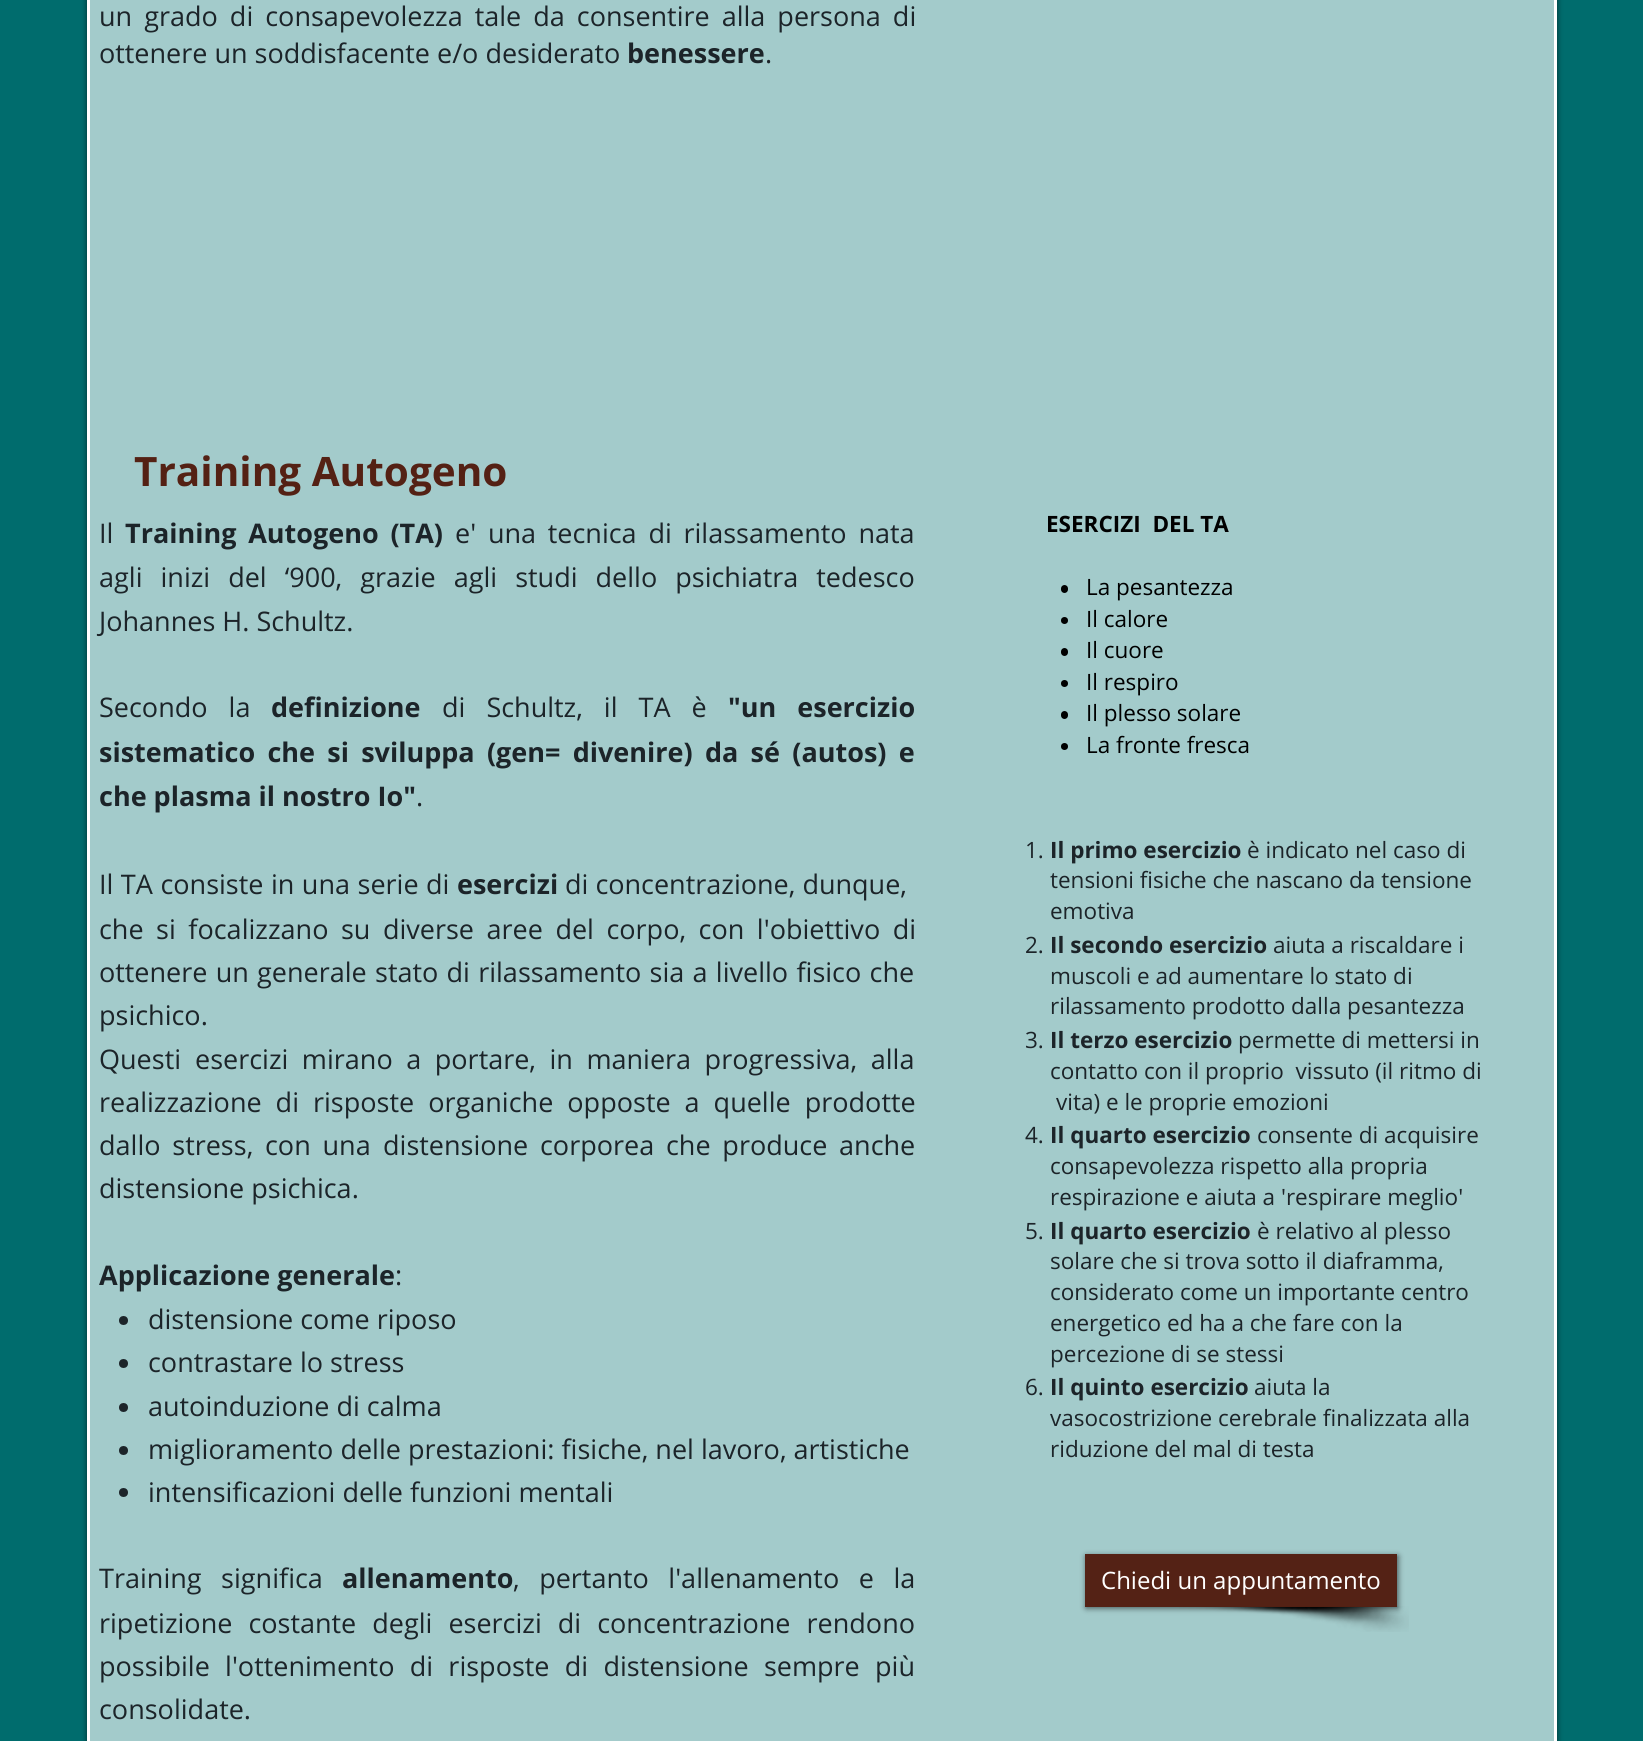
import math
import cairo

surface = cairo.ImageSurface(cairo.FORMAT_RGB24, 1643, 1741)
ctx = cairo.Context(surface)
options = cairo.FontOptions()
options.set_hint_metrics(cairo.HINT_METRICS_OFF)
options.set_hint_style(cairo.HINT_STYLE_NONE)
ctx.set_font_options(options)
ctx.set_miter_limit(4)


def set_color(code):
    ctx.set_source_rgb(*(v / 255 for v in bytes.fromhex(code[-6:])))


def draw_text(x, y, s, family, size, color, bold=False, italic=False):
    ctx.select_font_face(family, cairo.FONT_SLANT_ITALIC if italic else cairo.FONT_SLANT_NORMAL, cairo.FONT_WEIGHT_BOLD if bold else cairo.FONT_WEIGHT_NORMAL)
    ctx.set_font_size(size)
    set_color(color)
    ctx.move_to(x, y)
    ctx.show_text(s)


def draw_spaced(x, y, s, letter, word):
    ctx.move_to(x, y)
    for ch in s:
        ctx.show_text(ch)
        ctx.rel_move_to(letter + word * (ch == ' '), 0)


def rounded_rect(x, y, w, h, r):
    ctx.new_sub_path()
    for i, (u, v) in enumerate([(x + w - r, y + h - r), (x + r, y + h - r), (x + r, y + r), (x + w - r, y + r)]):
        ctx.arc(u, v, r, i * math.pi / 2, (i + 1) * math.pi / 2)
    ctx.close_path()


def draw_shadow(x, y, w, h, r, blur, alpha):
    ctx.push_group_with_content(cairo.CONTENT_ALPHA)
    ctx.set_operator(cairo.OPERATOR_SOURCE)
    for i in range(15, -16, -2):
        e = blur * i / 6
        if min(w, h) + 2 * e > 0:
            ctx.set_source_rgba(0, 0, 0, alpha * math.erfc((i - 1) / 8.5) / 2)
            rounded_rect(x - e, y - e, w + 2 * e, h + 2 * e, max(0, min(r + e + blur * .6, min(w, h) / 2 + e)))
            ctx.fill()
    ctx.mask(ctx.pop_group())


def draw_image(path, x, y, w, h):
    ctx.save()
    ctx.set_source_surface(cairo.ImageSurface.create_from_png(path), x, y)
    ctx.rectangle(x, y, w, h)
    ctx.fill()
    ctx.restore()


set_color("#006c6d")
ctx.paint()
set_color("#000000")
draw_shadow(87, -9, 1470, 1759, 0, 3, 0.6)
set_color("#a3cbcb")
ctx.rectangle(88.5, -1.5, 1467, 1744)
ctx.fill_preserve()
set_color("#ffffff")
ctx.set_line_width(3)
ctx.stroke()
ctx.select_font_face("Open Sans")
ctx.set_font_size(27)
set_color("#1c2429")
draw_spaced(99, 26, "un grado di consapevolezza tale da consentire alla persona di", 0, 5)
draw_text(99, 63, "ottenere un soddisfacente e/o desiderato", "Open Sans", 27, "#1c2429")
draw_text(627, 63, "benessere", "Open Sans", 27, "#1c2429", bold=True)
draw_text(765, 63, ".", "Open Sans", 27, "#1c2429")
draw_image("assets/img1.png", 1179, 1606, 230, 26)
ctx.save()
ctx.set_fill_rule(cairo.FILL_RULE_EVEN_ODD)
ctx.new_path()
ctx.move_to(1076, 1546)
ctx.line_to(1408, 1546)
ctx.line_to(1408, 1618)
ctx.line_to(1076, 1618)
ctx.close_path()
ctx.move_to(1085, 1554)
ctx.line_to(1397, 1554)
ctx.line_to(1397, 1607)
ctx.line_to(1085, 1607)
ctx.close_path()
ctx.clip()
set_color("#000000")
draw_shadow(1086, 1556, 312, 52, 0, 3, 0.6)
ctx.restore()
ctx.set_source_rgba(0.329, 0.129, 0.078, 0.99)
ctx.rectangle(1085, 1554, 312, 53)
ctx.fill()
draw_text(1101, 1589, "Chiedi un appuntamento", "Open Sans", 24, "#ffffff")
draw_text(134, 486, "Training Autogeno", "Open Sans", 40.5, "#542114", bold=True)
draw_text(99, 543, "Il", "Open Sans", 27, "#1c2429")
ctx.select_font_face("Open Sans", cairo.FONT_SLANT_NORMAL, cairo.FONT_WEIGHT_BOLD)
draw_spaced(125, 543, "Training Autogeno (TA)", 0, 4.75)
ctx.select_font_face("Open Sans")
draw_spaced(455, 543, "e' una tecnica di rilassamento nata", 0, 4.75)
draw_spaced(99, 587, "agli inizi del ‘900, grazie agli studi dello psichiatra tedesco", 0, 11)
draw_text(99, 631, "Johannes H. Schultz.", "Open Sans", 27, "#1c2429")
draw_spaced(99, 717, "Secondo la", 0, 14)
draw_text(271, 717, "definizione", "Open Sans", 27, "#1c2429", bold=True)
ctx.select_font_face("Open Sans")
draw_spaced(442, 717, "di Schultz, il TA è", 0, 14)
ctx.select_font_face("Open Sans", cairo.FONT_SLANT_NORMAL, cairo.FONT_WEIGHT_BOLD)
draw_spaced(728, 717, "\"un esercizio", 0, 14)
draw_spaced(99, 762, "sistematico che si sviluppa (gen= divenire) da sé (autos) e", 0, 5.25)
draw_text(99, 806, "che plasma il nostro Io\"", "Open Sans", 27, "#1c2429", bold=True)
draw_text(416, 806, ".", "Open Sans", 27, "#1c2429")
draw_spaced(99, 894, "Il TA consiste in una serie di", 0, 0.5)
draw_text(457, 894, "esercizi", "Open Sans", 27, "#1c2429", bold=True)
draw_text(565, 894, "di concentrazione, dunque,", "Open Sans", 27, "#1c2429")
draw_spaced(99, 939, "che si focalizzano su diverse aree del corpo, con l'obiettivo di", 0, 5.5)
draw_spaced(99, 982, "ottenere un generale stato di rilassamento sia a livello fisico che", 0, 1.25)
draw_text(99, 1025, "psichico.", "Open Sans", 27, "#1c2429")
draw_text(99, 1069, "Questi", "Open Sans", 27, "#1c2429")
draw_spaced(195, 1069, "esercizi mirano a portare, in maniera progressiva, alla", 0, 6.5)
draw_spaced(99, 1112, "realizzazione di risposte organiche opposte a quelle prodotte", 0, 7)
draw_spaced(99, 1155, "dallo stress, con una", 0, 4.75)
draw_spaced(383, 1155, "distensione corporea che produce anche", 0, 4.75)
draw_text(99, 1198, "distensione psichica.", "Open Sans", 27, "#1c2429")
draw_text(99, 1285, "Applicazione generale", "Open Sans", 27, "#1c2429", bold=True)
draw_text(395, 1285, ":", "Open Sans", 27, "#1c2429")
ctx.new_path()
ctx.arc(123.5, 1320.5, 4.5, 0, 2 * math.pi)
ctx.fill()
draw_text(148, 1329, "distensione come riposo", "Open Sans", 27, "#1c2429")
ctx.new_path()
ctx.arc(123.5, 1363.5, 4.5, 0, 2 * math.pi)
ctx.fill()
draw_text(148, 1372, "contrastare lo stress", "Open Sans", 27, "#1c2429")
ctx.new_path()
ctx.arc(123.5, 1407.5, 4.5, 0, 2 * math.pi)
ctx.fill()
draw_text(148, 1416, "autoinduzione di calma", "Open Sans", 27, "#1c2429")
ctx.new_path()
ctx.arc(123.5, 1450.5, 4.5, 0, 2 * math.pi)
ctx.fill()
draw_text(148, 1459, "miglioramento delle prestazioni: fisiche, nel lavoro, artistiche", "Open Sans", 27, "#1c2429")
ctx.new_path()
ctx.arc(123.5, 1492.5, 4.5, 0, 2 * math.pi)
ctx.fill()
draw_text(148, 1502, "intensificazioni delle funzioni mentali", "Open Sans", 27, "#1c2429")
draw_spaced(99, 1588, "Training significa", 0, 12.5)
draw_text(342, 1588, "allenamento", "Open Sans", 27, "#1c2429", bold=True)
ctx.select_font_face("Open Sans")
draw_spaced(513, 1588, ", pertanto l'allenamento e la", 0, 12.5)
draw_spaced(99, 1633, "ripetizione costante degli esercizi di concentrazione rendono", 0, 9)
draw_spaced(99, 1676, "possibile l'ottenimento di risposte di distensione sempre più", 0, 8.25)
draw_text(99, 1719, "consolidate.", "Open Sans", 27, "#1c2429")
draw_text(1046, 532, "ESERCIZI  DEL TA", "Open Sans", 22.5, "#000000", bold=True)
rounded_rect(1061, 585, 7, 8, 3.5)
ctx.fill()
draw_text(1086, 595, "La pesantezza", "Open Sans", 22.5, "#000000")
ctx.new_path()
ctx.arc(1064.5, 620.5, 3.5, 0, 2 * math.pi)
ctx.fill()
draw_text(1086, 627, "Il calore", "Open Sans", 22.5, "#000000")
rounded_rect(1061, 648, 7, 8, 3.5)
ctx.fill()
draw_text(1086, 658, "Il cuore", "Open Sans", 22.5, "#000000")
ctx.new_path()
ctx.arc(1064.5, 683.5, 3.5, 0, 2 * math.pi)
ctx.fill()
draw_text(1086, 690, "Il respiro", "Open Sans", 22.5, "#000000")
rounded_rect(1061, 711, 7, 8, 3.5)
ctx.fill()
draw_text(1086, 721, "Il plesso solare", "Open Sans", 22.5, "#000000")
ctx.new_path()
ctx.arc(1064.5, 746.5, 3.5, 0, 2 * math.pi)
ctx.fill()
draw_text(1086, 753, "La fronte fresca", "Open Sans", 22.5, "#000000")
draw_text(1025, 858, "1.", "Open Sans", 22.5, "#1c2429")
draw_text(1050, 858, "Il primo esercizio", "Open Sans", 22.5, "#1c2429", bold=True)
draw_text(1247, 858, "è indicato nel caso di", "Open Sans", 22.5, "#1c2429")
draw_text(1050, 888, "tensioni fisiche che nascano da tensione", "Open Sans", 22.5, "#1c2429")
draw_text(1050, 919, "emotiva", "Open Sans", 22.5, "#1c2429")
draw_text(1025, 953, "2.", "Open Sans", 22.5, "#1c2429")
draw_text(1050, 953, "Il secondo esercizio", "Open Sans", 22.5, "#1c2429", bold=True)
draw_text(1273, 953, "aiuta a riscaldare i", "Open Sans", 22.5, "#1c2429")
draw_text(1050, 984, "muscoli e ad aumentare lo stato di", "Open Sans", 22.5, "#1c2429")
draw_text(1050, 1014, "rilassamento prodotto dalla pesantezza", "Open Sans", 22.5, "#1c2429")
draw_text(1025, 1048, "3.", "Open Sans", 22.5, "#1c2429")
draw_text(1050, 1048, "Il terzo esercizio", "Open Sans", 22.5, "#1c2429", bold=True)
draw_text(1238, 1048, "permette di mettersi in", "Open Sans", 22.5, "#1c2429")
draw_text(1050, 1079, "contatto con il proprio  vissuto (il ritmo di", "Open Sans", 22.5, "#1c2429")
draw_text(1056, 1110, "vita) e le proprie emozioni", "Open Sans", 22.5, "#1c2429")
draw_text(1025, 1143, "4.", "Open Sans", 22.5, "#1c2429")
draw_text(1050, 1143, "Il quarto esercizio", "Open Sans", 22.5, "#1c2429", bold=True)
draw_text(1257, 1143, "consente di acquisire", "Open Sans", 22.5, "#1c2429")
draw_text(1050, 1174, "consapevolezza rispetto alla propria", "Open Sans", 22.5, "#1c2429")
draw_text(1050, 1205, "respirazione e aiuta a 'respirare meglio'", "Open Sans", 22.5, "#1c2429")
draw_text(1025, 1239, "5.", "Open Sans", 22.5, "#1c2429")
draw_text(1050, 1239, "Il quarto esercizio", "Open Sans", 22.5, "#1c2429", bold=True)
draw_text(1257, 1239, "è relativo al plesso", "Open Sans", 22.5, "#1c2429")
draw_text(1050, 1269, "solare che si trova sotto il diaframma,", "Open Sans", 22.5, "#1c2429")
draw_text(1050, 1300, "considerato come un importante centro", "Open Sans", 22.5, "#1c2429")
draw_text(1050, 1331, "energetico ed ha a che fare con la", "Open Sans", 22.5, "#1c2429")
draw_text(1050, 1362, "percezione di se stessi", "Open Sans", 22.5, "#1c2429")
draw_text(1025, 1395, "6.", "Open Sans", 22.5, "#1c2429")
draw_text(1050, 1395, "Il quinto esercizio", "Open Sans", 22.5, "#1c2429", bold=True)
draw_text(1254, 1395, "aiuta la", "Open Sans", 22.5, "#1c2429")
draw_text(1050, 1426, "vasocostrizione cerebrale finalizzata alla", "Open Sans", 22.5, "#1c2429")
draw_text(1050, 1457, "riduzione del mal di testa", "Open Sans", 22.5, "#1c2429")
surface.write_to_png("output.png")
